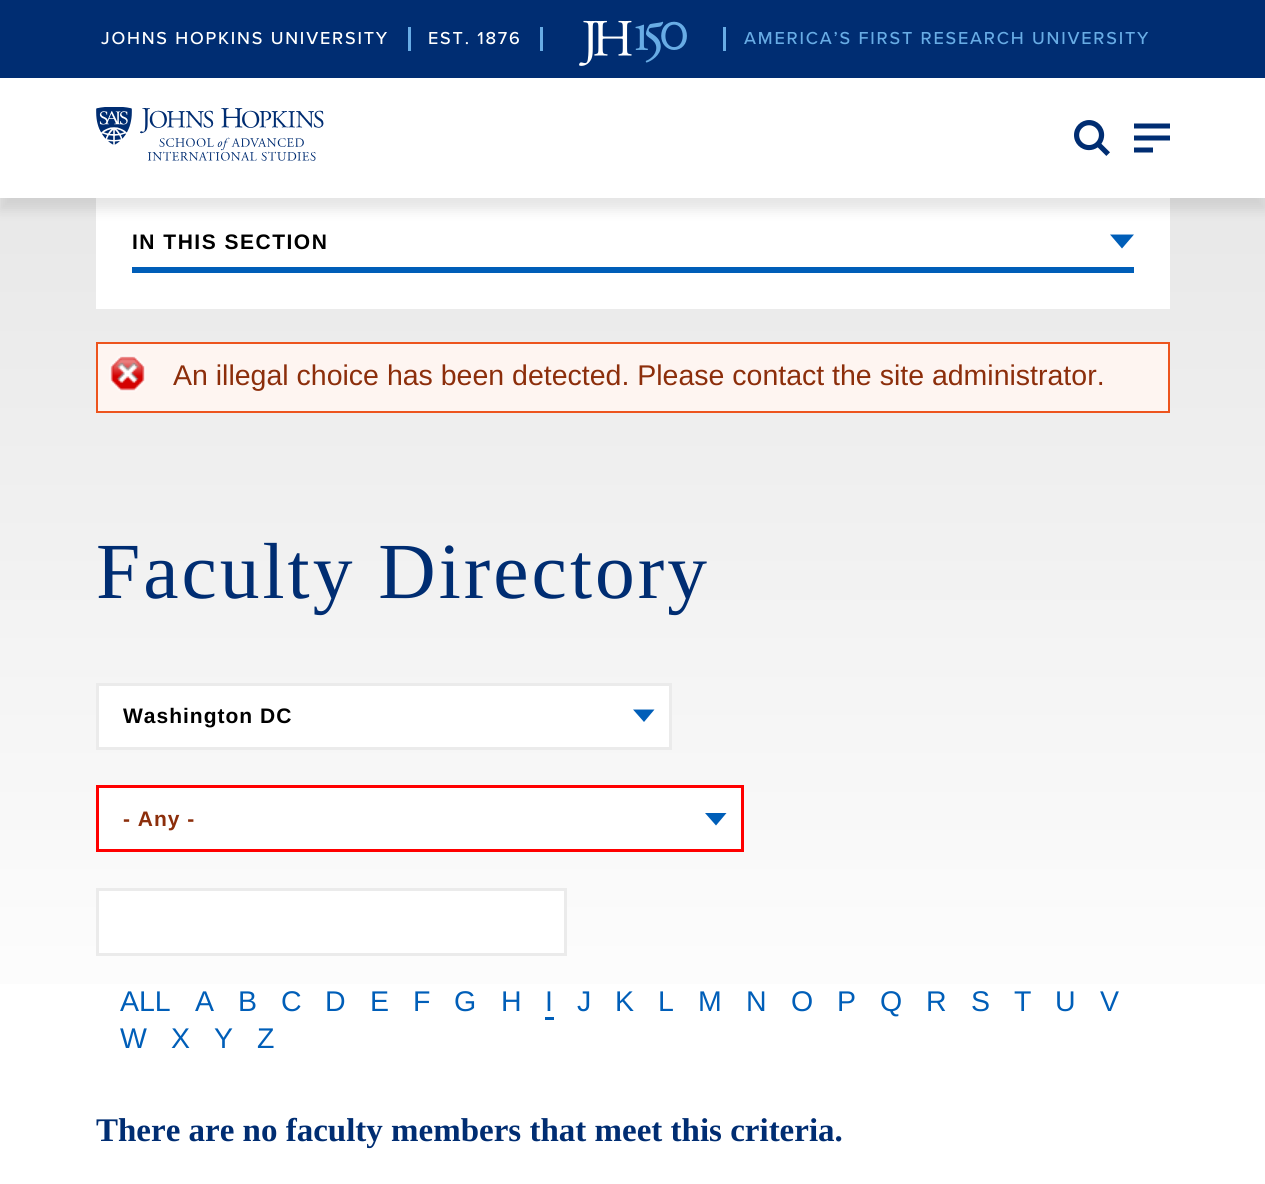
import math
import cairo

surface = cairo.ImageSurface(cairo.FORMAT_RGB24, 1265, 1184)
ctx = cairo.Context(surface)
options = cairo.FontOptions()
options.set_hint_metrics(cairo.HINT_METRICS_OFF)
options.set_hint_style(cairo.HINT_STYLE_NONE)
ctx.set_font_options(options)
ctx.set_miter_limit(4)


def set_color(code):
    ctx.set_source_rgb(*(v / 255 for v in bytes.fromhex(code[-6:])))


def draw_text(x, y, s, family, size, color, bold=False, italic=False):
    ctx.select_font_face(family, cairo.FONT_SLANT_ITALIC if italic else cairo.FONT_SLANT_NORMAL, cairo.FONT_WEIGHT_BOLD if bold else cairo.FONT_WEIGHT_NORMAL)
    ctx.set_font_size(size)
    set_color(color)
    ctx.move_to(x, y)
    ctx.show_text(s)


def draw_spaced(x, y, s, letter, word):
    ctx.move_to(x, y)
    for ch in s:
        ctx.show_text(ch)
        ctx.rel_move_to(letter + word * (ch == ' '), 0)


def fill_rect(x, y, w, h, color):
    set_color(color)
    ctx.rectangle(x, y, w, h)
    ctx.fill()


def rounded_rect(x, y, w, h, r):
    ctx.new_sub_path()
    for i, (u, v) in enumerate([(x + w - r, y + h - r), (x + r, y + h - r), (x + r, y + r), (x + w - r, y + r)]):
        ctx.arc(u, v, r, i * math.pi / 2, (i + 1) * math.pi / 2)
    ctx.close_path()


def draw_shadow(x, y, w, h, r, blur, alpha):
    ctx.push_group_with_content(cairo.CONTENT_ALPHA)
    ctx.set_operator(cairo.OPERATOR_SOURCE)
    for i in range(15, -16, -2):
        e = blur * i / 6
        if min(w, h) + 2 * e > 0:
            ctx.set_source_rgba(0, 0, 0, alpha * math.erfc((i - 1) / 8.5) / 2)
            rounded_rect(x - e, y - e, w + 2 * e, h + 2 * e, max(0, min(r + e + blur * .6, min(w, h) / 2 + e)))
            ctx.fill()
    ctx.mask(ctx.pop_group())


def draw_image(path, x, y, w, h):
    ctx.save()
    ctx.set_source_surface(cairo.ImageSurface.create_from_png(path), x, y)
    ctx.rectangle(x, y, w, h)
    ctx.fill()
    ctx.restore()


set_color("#ffffff")
ctx.paint()
gradient = cairo.LinearGradient(633, 120, 633, 1080)
gradient.add_color_stop_rgba(0, 0.902, 0.902, 0.902, 1)
gradient.add_color_stop_rgba(1, 1, 1, 1, 1)
ctx.set_source(gradient)
ctx.rectangle(0, 198, 1265, 786)
ctx.fill()
fill_rect(96, 198, 1074, 111, "#ffffff")
set_color("#000000")
draw_shadow(0, 12, 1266, 198, 0, 6, 0.1)
fill_rect(0, 78, 1265, 120, "#ffffff")
fill_rect(0, 0, 1265, 78, "#002d72")
ctx.select_font_face("Proxima Nova Medium")
ctx.set_font_size(18)
set_color("#ffffff")
draw_spaced(101, 44, "JOHNS HOPKINS UNIVERSITY", 1.8, 0)
fill_rect(408, 27, 3, 24, "#68ace5")
set_color("#ffffff")
draw_spaced(428, 44, "EST. 1876", 1.8, 0)
fill_rect(540, 27, 3, 24, "#68ace5")
draw_image("assets/img1.png", 579, 20, 108, 46)
fill_rect(723, 27, 3, 24, "#68ace5")
draw_spaced(744, 44, "AMERICA’S FIRST RESEARCH UNIVERSITY", 1.8, 0)
draw_image("assets/img2.png", 96, 107, 228, 54)
draw_image("assets/img3.png", 1074, 120, 36, 36)
set_color("#002d72")
ctx.set_fill_rule(cairo.FILL_RULE_EVEN_ODD)
ctx.new_path()
ctx.move_to(1134, 128.5)
ctx.line_to(1170, 128.5)
ctx.line_to(1170, 123.5)
ctx.line_to(1134, 123.5)
ctx.close_path()
ctx.move_to(1134, 140.5)
ctx.line_to(1170, 140.5)
ctx.line_to(1170, 135.5)
ctx.line_to(1134, 135.5)
ctx.close_path()
ctx.move_to(1134, 152.5)
ctx.line_to(1153, 152.5)
ctx.line_to(1153, 147.5)
ctx.line_to(1134, 147.5)
ctx.close_path()
ctx.fill()
fill_rect(132, 267, 1002, 6, "#005eb8")
ctx.select_font_face("Liberation Sans", cairo.FONT_SLANT_NORMAL, cairo.FONT_WEIGHT_BOLD)
ctx.set_font_size(21)
set_color("#000000")
draw_spaced(132, 249, "IN THIS SECTION", 1.5, 0)
set_color("#005eb8")
ctx.set_fill_rule(cairo.FILL_RULE_WINDING)
ctx.new_path()
ctx.move_to(1122, 248.5)
ctx.line_to(1110, 234.5)
ctx.line_to(1134, 234.5)
ctx.close_path()
ctx.fill()
fill_rect(98, 344, 1070, 67, "#fef5f1")
draw_image("assets/img4.png", 109, 355, 37, 37)
ctx.rectangle(97, 343, 1072, 69)
set_color("#ed541d")
ctx.stroke()
draw_text(173, 385, "An illegal choice has been detected. Please contact the site administrator.", "Liberation Sans", 28.5, "#8c2e0b")
ctx.select_font_face("Liberation Serif")
ctx.set_font_size(79.5)
set_color("#002d72")
draw_spaced(96, 598, "Faculty Directory", 3, 0)
fill_rect(99, 686, 570, 61, "#ffffff")
set_color("#005eb8")
ctx.new_path()
ctx.move_to(644, 722)
ctx.line_to(633, 709.5)
ctx.line_to(654.5, 709.5)
ctx.close_path()
ctx.fill()
ctx.rectangle(97.5, 684.5, 573, 64)
set_color("#ebebeb")
ctx.set_line_width(3)
ctx.stroke()
ctx.select_font_face("Liberation Sans", cairo.FONT_SLANT_NORMAL, cairo.FONT_WEIGHT_BOLD)
ctx.set_font_size(21)
set_color("#000000")
draw_spaced(123, 723, "Washington DC", 1, 0)
fill_rect(99, 788, 642, 61, "#ffffff")
set_color("#005eb8")
ctx.new_path()
ctx.move_to(716, 825.5)
ctx.line_to(705, 813)
ctx.line_to(726.5, 813)
ctx.close_path()
ctx.fill()
ctx.rectangle(97.5, 786.5, 645, 64)
set_color("#ff0000")
ctx.stroke()
set_color("#8c2e0b")
draw_spaced(123, 826, "- Any -", 1, 0)
set_color("#ffffff")
ctx.rectangle(97.5, 889.5, 468, 65)
ctx.fill_preserve()
set_color("#ebebeb")
ctx.stroke()
draw_text(120, 1011, "ALL", "Liberation Sans", 28.5, "#005eb8")
draw_text(195, 1011, "A", "Liberation Sans", 28.5, "#005eb8")
draw_text(238, 1011, "B", "Liberation Sans", 28.5, "#005eb8")
draw_text(281, 1011, "C", "Liberation Sans", 28.5, "#005eb8")
draw_text(325, 1011, "D", "Liberation Sans", 28.5, "#005eb8")
draw_text(370, 1011, "E", "Liberation Sans", 28.5, "#005eb8")
draw_text(413, 1011, "F", "Liberation Sans", 28.5, "#005eb8")
draw_text(454, 1011, "G", "Liberation Sans", 28.5, "#005eb8")
draw_text(501, 1011, "H", "Liberation Sans", 28.5, "#005eb8")
draw_text(545, 1011, "I", "Liberation Sans", 28.5, "#005eb8")
fill_rect(545, 1017, 9, 3, "#005eb8")
draw_text(577, 1011, "J", "Liberation Sans", 28.5, "#005eb8")
draw_text(615, 1011, "K", "Liberation Sans", 28.5, "#005eb8")
draw_text(658, 1011, "L", "Liberation Sans", 28.5, "#005eb8")
draw_text(698, 1011, "M", "Liberation Sans", 28.5, "#005eb8")
draw_text(746, 1011, "N", "Liberation Sans", 28.5, "#005eb8")
draw_text(791, 1011, "O", "Liberation Sans", 28.5, "#005eb8")
draw_text(837, 1011, "P", "Liberation Sans", 28.5, "#005eb8")
draw_text(880, 1011, "Q", "Liberation Sans", 28.5, "#005eb8")
draw_text(926, 1011, "R", "Liberation Sans", 28.5, "#005eb8")
draw_text(971, 1011, "S", "Liberation Sans", 28.5, "#005eb8")
draw_text(1014, 1011, "T", "Liberation Sans", 28.5, "#005eb8")
draw_text(1055, 1011, "U", "Liberation Sans", 28.5, "#005eb8")
draw_text(1100, 1011, "V", "Liberation Sans", 28.5, "#005eb8")
draw_text(120, 1048, "W", "Liberation Sans", 28.5, "#005eb8")
draw_text(171, 1048, "X", "Liberation Sans", 28.5, "#005eb8")
draw_text(214, 1048, "Y", "Liberation Sans", 28.5, "#005eb8")
draw_text(257, 1048, "Z", "Liberation Sans", 28.5, "#005eb8")
draw_text(96, 1141, "There are no faculty members that meet this criteria.", "Liberation Serif", 33, "#002d72", bold=True)
surface.write_to_png("output.png")
